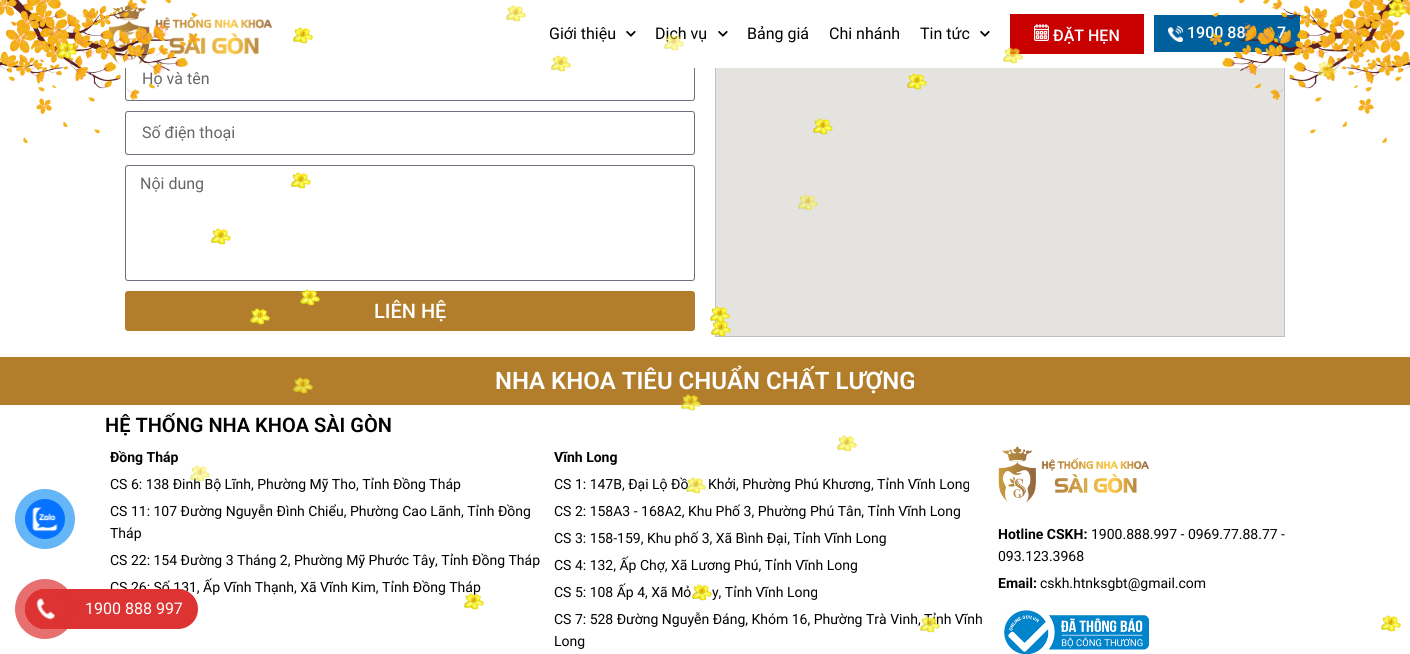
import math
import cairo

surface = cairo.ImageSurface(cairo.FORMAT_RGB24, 1410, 654)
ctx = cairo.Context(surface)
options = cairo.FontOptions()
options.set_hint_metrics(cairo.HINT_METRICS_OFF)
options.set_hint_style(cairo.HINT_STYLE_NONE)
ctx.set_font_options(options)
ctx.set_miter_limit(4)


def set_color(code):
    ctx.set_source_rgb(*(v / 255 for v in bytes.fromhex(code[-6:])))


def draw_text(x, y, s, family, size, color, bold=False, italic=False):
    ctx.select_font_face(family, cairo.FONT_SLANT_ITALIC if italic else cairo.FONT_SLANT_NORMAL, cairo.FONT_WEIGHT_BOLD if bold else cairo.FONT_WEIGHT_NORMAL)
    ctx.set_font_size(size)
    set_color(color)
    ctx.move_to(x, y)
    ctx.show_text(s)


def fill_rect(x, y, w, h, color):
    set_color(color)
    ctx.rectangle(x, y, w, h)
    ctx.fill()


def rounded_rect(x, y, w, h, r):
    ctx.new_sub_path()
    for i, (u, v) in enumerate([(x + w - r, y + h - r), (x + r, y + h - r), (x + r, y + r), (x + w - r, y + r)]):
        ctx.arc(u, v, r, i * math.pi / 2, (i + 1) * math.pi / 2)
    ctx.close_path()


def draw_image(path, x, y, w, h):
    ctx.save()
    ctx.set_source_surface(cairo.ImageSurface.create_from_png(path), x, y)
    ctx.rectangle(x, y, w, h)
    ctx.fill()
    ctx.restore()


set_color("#ffffff")
ctx.paint()
rounded_rect(125.5, 57.5, 569, 43, 2.5)
set_color("#69727d")
ctx.set_line_width(1)
ctx.stroke()
fill_rect(125, 57, 570, 11, "#ffffff")
draw_image("assets/img26.png", 108, 3, 164, 62)
draw_text(142, 84, "Họ và tên", "Roboto", 16, "#666666")
rounded_rect(125.5, 111.5, 569, 43, 2.5)
set_color("#69727d")
ctx.stroke()
draw_text(142, 138, "Số điện thoại", "Roboto", 16, "#666666")
draw_image("assets/img1.png", 0, 0, 200, 143)
fill_rect(1154, 15, 146, 37, "#005f9d")
draw_text(1187, 38, "1900 88", "Roboto Medium", 16, "#ffffff")
draw_text(1277, 38, "7", "Roboto Medium", 16, "#ffffff")
draw_image("assets/img31.png", 715, 68, 570, 269)
draw_image("assets/img30.png", 1210, 0, 200, 143)
draw_image("assets/img2.png", 1387, 0, 15, 3)
draw_image("assets/img3.png", 506, 5, 20, 17)
draw_image("assets/img4.png", 1387, 1, 20, 17)
draw_image("assets/img5.png", 57, 42, 20, 17)
draw_image("assets/img6.png", 293, 27, 20, 17)
draw_image("assets/img7.png", 551, 55, 20, 17)
draw_text(655, 39, "Dịch vụ", "Roboto", 16, "#000000")
draw_image("assets/img8.png", 664, 34, 20, 17)
fill_rect(1010, 14, 134, 40, "#c80000")
draw_image("assets/img9.png", 1003, 47, 20, 17)
draw_image("assets/img10.png", 1317, 61, 20, 17)
draw_image("assets/img11.png", 907, 73, 20, 17)
draw_image("assets/img11.png", 813, 118, 20, 17)
rounded_rect(125.5, 165.5, 569, 115, 2.5)
set_color("#69727d")
ctx.stroke()
draw_image("assets/img6.png", 291, 172, 20, 17)
draw_image("assets/img12.png", 798, 194, 20, 17)
draw_image("assets/img6.png", 211, 228, 20, 17)
set_color("#b37e2c")
rounded_rect(125, 291, 570, 40, 3)
ctx.fill()
draw_image("assets/img13.png", 300, 289, 20, 17)
draw_image("assets/img14.png", 250, 308, 20, 17)
draw_image("assets/img16.png", 711, 320, 20, 17)
draw_image("assets/img15.png", 710, 306, 20, 17)
fill_rect(0, 357, 1410, 48, "#b37e2c")
draw_image("assets/img17.png", 293, 377, 20, 17)
draw_image("assets/img18.png", 681, 394, 20, 17)
draw_image("assets/img19.png", 837, 435, 20, 17)
draw_text(110, 489, "CS 6: 138 Đinh Bộ Lĩnh, Phường Mỹ Tho, Tỉnh Đồng Tháp", "Roboto", 14, "#000000")
draw_image("assets/img20.png", 190, 465, 20, 17)
draw_text(554, 489, "CS 1: 147B, Đại Lộ Đồ", "Roboto", 14, "#000000")
draw_image("assets/img21.png", 686, 477, 20, 17)
draw_text(110, 592, "CS 26: Số 131, Ấp Vĩnh Thạnh, Xã Vĩnh Kim, Tỉnh Đồng Tháp", "Roboto", 14, "#000000")
draw_image("assets/img22.png", 464, 593, 20, 17)
draw_text(712, 597, "y, Tỉnh Vĩnh Long", "Roboto", 14, "#000000")
draw_image("assets/img23.png", 692, 584, 20, 17)
draw_text(554, 624, "CS 7: 528 Đường Nguyễn Đáng, Khóm 16, Phường Trà Vinh, Tỉnh Vĩnh", "Roboto", 14, "#000000")
draw_image("assets/img24.png", 920, 616, 20, 17)
draw_image("assets/img25.png", 1381, 615, 20, 17)
draw_text(549, 39, "Giới thiệu", "Roboto", 16, "#000000")
draw_image("assets/img27.png", 626, 31, 10, 6)
draw_image("assets/img27.png", 718, 31, 10, 6)
draw_text(747, 39, "Bảng giá", "Roboto", 16, "#000000")
draw_text(829, 39, "Chi nhánh", "Roboto", 16, "#000000")
draw_text(920, 39, "Tin tức", "Roboto", 16, "#000000")
draw_image("assets/img27.png", 980, 31, 10, 6)
draw_image("assets/img28.png", 1034, 24, 15, 17)
draw_text(1053, 41, "ĐẶT HẸN", "Roboto Medium", 16, "#ffffff")
draw_image("assets/img29.png", 1168, 26, 15, 16)
draw_text(140, 189, "Nội dung", "Roboto", 16, "#666666")
draw_text(374, 318, "LIÊN HỆ", "Roboto Medium", 20, "#ffffff")
draw_text(495, 389, "NHA KHOA TIÊU CHUẨN CHẤT LƯỢNG", "Roboto SemiBold", 24, "#ffffff")
draw_text(105, 432, "HỆ THỐNG NHA KHOA SÀI GÒN", "Roboto SemiBold", 20, "#000000")
draw_text(110, 462, "Đồng Tháp", "Roboto", 14, "#000000", bold=True)
draw_text(110, 516, "CS 11: 107 Đường Nguyễn Đình Chiểu, Phường Cao Lãnh, Tỉnh Đồng", "Roboto", 14, "#000000")
draw_text(110, 538, "Tháp", "Roboto", 14, "#000000")
draw_text(110, 565, "CS 22: 154 Đường 3 Tháng 2, Phường Mỹ Phước Tây, Tỉnh Đồng Tháp", "Roboto", 14, "#000000")
draw_text(554, 462, "Vĩnh Long", "Roboto", 14, "#000000", bold=True)
draw_text(708, 489, "Khởi, Phường Phú Khương, Tỉnh Vĩnh Long", "Roboto", 14, "#000000")
draw_text(554, 516, "CS 2: 158A3 - 168A2, Khu Phố 3, Phường Phú Tân, Tỉnh Vĩnh Long", "Roboto", 14, "#000000")
draw_text(554, 543, "CS 3: 158-159, Khu phố 3, Xã Bình Đại, Tỉnh Vĩnh Long", "Roboto", 14, "#000000")
draw_text(554, 570, "CS 4: 132, Ấp Chợ, Xã Lương Phú, Tỉnh Vĩnh Long", "Roboto", 14, "#000000")
draw_text(554, 597, "CS 5: 108 Ấp 4, Xã Mỏ", "Roboto", 14, "#000000")
draw_text(554, 646, "Long", "Roboto", 14, "#000000")
draw_image("assets/img32.png", 998, 446, 151, 57)
draw_text(998, 539, "Hotline CSKH:", "Roboto", 14, "#000000", bold=True)
draw_text(1091, 539, "1900.888.997 - 0969.77.88.77 -", "Roboto", 14, "#000000")
draw_text(998, 561, "093.123.3968", "Roboto", 14, "#000000")
draw_text(998, 588, "Email:", "Roboto", 14, "#000000", bold=True)
draw_text(1040, 588, "cskh.htnksgbt@gmail.com", "Roboto", 14, "#000000")
draw_image("assets/img33.png", 998, 604, 151, 50)
set_color("#64b6f7")
ctx.arc(45, 519, 30, 0, 2 * math.pi)
ctx.fill()
set_color("#0573ff")
ctx.arc(45, 519, 20, 0, 2 * math.pi)
ctx.fill()
draw_image("assets/img34.png", 32, 507, 26, 25)
set_color("#dd3333")
rounded_rect(25, 589, 173, 40, 20)
ctx.fill()
ctx.set_source_rgba(0.867, 0.2, 0.2, 0.7)
ctx.arc(45, 609, 30, 0, 2 * math.pi)
ctx.fill()
set_color("#dd3333")
ctx.arc(45, 609, 20, 0, 2 * math.pi)
ctx.fill()
draw_image("assets/img35.png", 36, 598, 19, 22)
draw_text(85, 614, "1900 888 997", "Roboto", 16, "#ffffff")
surface.write_to_png("output.png")
